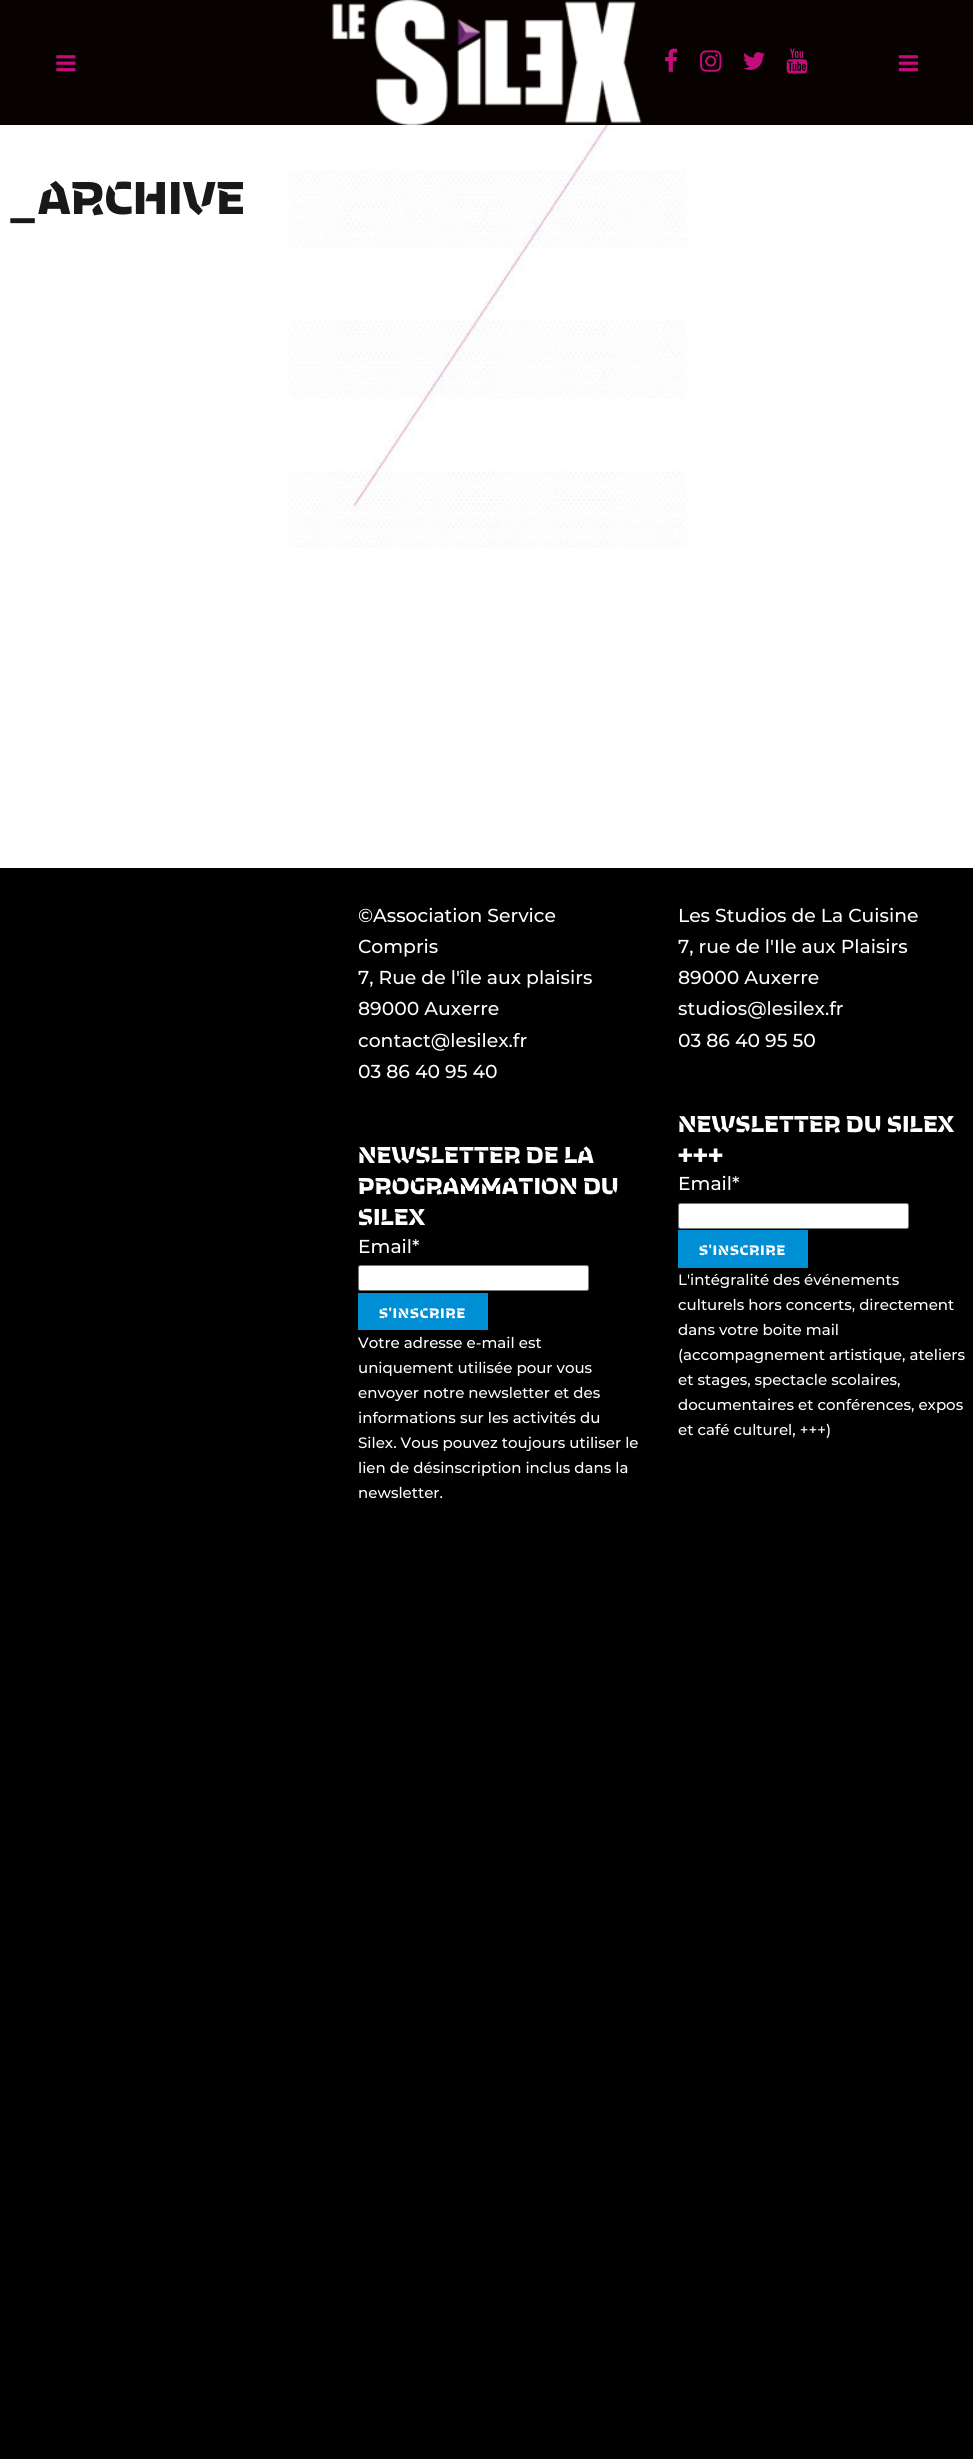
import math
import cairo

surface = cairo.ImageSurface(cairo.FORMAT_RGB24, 973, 2459)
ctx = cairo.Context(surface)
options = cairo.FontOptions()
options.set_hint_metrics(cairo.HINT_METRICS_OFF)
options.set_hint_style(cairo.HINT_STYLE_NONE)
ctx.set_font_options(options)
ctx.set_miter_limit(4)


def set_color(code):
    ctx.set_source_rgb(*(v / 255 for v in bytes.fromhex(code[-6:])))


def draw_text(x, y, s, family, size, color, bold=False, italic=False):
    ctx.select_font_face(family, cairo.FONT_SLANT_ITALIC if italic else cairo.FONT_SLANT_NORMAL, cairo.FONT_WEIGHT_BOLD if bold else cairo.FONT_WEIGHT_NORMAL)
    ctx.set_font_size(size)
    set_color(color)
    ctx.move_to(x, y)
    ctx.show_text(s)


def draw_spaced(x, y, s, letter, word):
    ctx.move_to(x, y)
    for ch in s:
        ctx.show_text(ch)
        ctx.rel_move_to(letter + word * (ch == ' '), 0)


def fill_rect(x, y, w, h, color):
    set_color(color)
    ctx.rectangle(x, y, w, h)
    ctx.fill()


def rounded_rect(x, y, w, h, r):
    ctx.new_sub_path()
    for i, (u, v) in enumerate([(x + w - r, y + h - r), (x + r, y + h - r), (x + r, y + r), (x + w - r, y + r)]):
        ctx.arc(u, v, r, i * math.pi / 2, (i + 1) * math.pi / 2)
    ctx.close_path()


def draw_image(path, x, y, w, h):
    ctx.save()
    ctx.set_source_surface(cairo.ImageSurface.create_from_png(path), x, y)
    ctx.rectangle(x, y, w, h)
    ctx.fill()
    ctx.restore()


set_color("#ffffff")
ctx.paint()
draw_image("assets/img1.png", 288, 125, 400, 423)
fill_rect(0, 0, 973, 125, "#070100")
draw_image("assets/img2.png", 56, 55, 20, 17)
draw_image("assets/img3.png", 332, 0, 310, 125)
draw_image("assets/img4.png", 665, 48, 13, 24)
draw_image("assets/img5.png", 700, 50, 22, 22)
draw_image("assets/img6.png", 743, 52, 22, 18)
draw_image("assets/img7.png", 786, 48, 22, 26)
draw_image("assets/img8.png", 898, 55, 21, 17)
ctx.select_font_face("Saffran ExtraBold")
ctx.set_font_size(50)
set_color("#1a1918")
draw_spaced(38, 214, "ARCHIVE", 0.4, 0)
ctx.select_font_face("Playfair Display", cairo.FONT_SLANT_NORMAL, cairo.FONT_WEIGHT_BOLD)
draw_spaced(7, 214, "_", 0.4, 0)
fill_rect(0, 868, 973, 1591, "#000000")
draw_text(358, 922, "©Association Service", "Montserrat Medium", 18.75, "#ffffff")
draw_text(358, 953, "Compris", "Montserrat Medium", 18.75, "#ffffff")
draw_text(358, 984, "7, Rue de l'île aux plaisirs", "Montserrat Medium", 18.75, "#ffffff")
draw_text(358, 1015, "89000 Auxerre", "Montserrat Medium", 18.75, "#ffffff")
draw_text(358, 1047, "contact@lesilex.fr", "Montserrat Medium", 18.75, "#ffffff")
draw_text(358, 1078, "03 86 40 95 40", "Montserrat Medium", 18.75, "#ffffff")
ctx.select_font_face("Saffran ExtraBold")
ctx.set_font_size(25)
draw_spaced(358, 1163, "NEWSLETTER DE LA", 0.4, 0)
draw_spaced(358, 1194, "PROGRAMMATION DU", 0.4, 0)
draw_spaced(358, 1225, "SILEX", 0.4, 0)
draw_text(358, 1253, "Email*", "Montserrat Medium", 18.75, "#ffffff")
rounded_rect(358.5, 1265.5, 230, 25, 2)
ctx.fill_preserve()
set_color("#767676")
ctx.set_line_width(1)
ctx.stroke()
fill_rect(358, 1293, 130, 37, "#008fd5")
ctx.select_font_face("Saffran ExtraBold")
ctx.set_font_size(15)
set_color("#ffffff")
draw_spaced(379, 1318, "S'INSCRIRE", 1, 0)
draw_text(358, 1348, "Votre adresse e-mail est", "Montserrat Medium", 15, "#ffffff")
draw_text(358, 1373, "uniquement utilisée pour vous", "Montserrat Medium", 15, "#ffffff")
draw_text(358, 1398, "envoyer notre newsletter et des", "Montserrat Medium", 15, "#ffffff")
draw_text(358, 1423, "informations sur les activités du", "Montserrat Medium", 15, "#ffffff")
draw_text(358, 1448, "Silex. Vous pouvez toujours utiliser le", "Montserrat Medium", 15, "#ffffff")
draw_text(358, 1473, "lien de désinscription inclus dans la", "Montserrat Medium", 15, "#ffffff")
draw_text(358, 1498, "newsletter.", "Montserrat Medium", 15, "#ffffff")
draw_text(678, 922, "Les Studios de La Cuisine", "Montserrat Medium", 18.75, "#ffffff")
draw_text(678, 953, "7, rue de l'Ile aux Plaisirs", "Montserrat Medium", 18.75, "#ffffff")
draw_text(678, 984, "89000 Auxerre", "Montserrat Medium", 18.75, "#ffffff")
draw_text(678, 1015, "studios@lesilex.fr", "Montserrat Medium", 18.75, "#ffffff")
draw_text(678, 1047, "03 86 40 95 50", "Montserrat Medium", 18.75, "#ffffff")
ctx.select_font_face("Saffran ExtraBold")
ctx.set_font_size(25)
draw_spaced(678, 1132, "NEWSLETTER DU SILEX", 0.4, 0)
draw_spaced(678, 1163, "+++", 0.4, 0)
draw_text(678, 1190, "Email*", "Montserrat Medium", 18.75, "#ffffff")
rounded_rect(678.5, 1203.5, 230, 25, 2)
ctx.fill_preserve()
set_color("#767676")
ctx.stroke()
fill_rect(678, 1230, 130, 38, "#008fd5")
ctx.select_font_face("Saffran ExtraBold")
ctx.set_font_size(15)
set_color("#ffffff")
draw_spaced(699, 1255, "S'INSCRIRE", 1, 0)
draw_text(678, 1285, "L'intégralité des événements", "Montserrat Medium", 15, "#ffffff")
draw_text(678, 1310, "culturels hors concerts, directement", "Montserrat Medium", 15, "#ffffff")
draw_text(678, 1335, "dans votre boite mail", "Montserrat Medium", 15, "#ffffff")
draw_text(678, 1360, "(accompagnement artistique, ateliers", "Montserrat Medium", 15, "#ffffff")
draw_text(678, 1385, "et stages, spectacle scolaires,", "Montserrat Medium", 15, "#ffffff")
draw_text(678, 1410, "documentaires et conférences, expos", "Montserrat Medium", 15, "#ffffff")
draw_text(678, 1435, "et café culturel, +++)", "Montserrat Medium", 15, "#ffffff")
surface.write_to_png("output.png")
